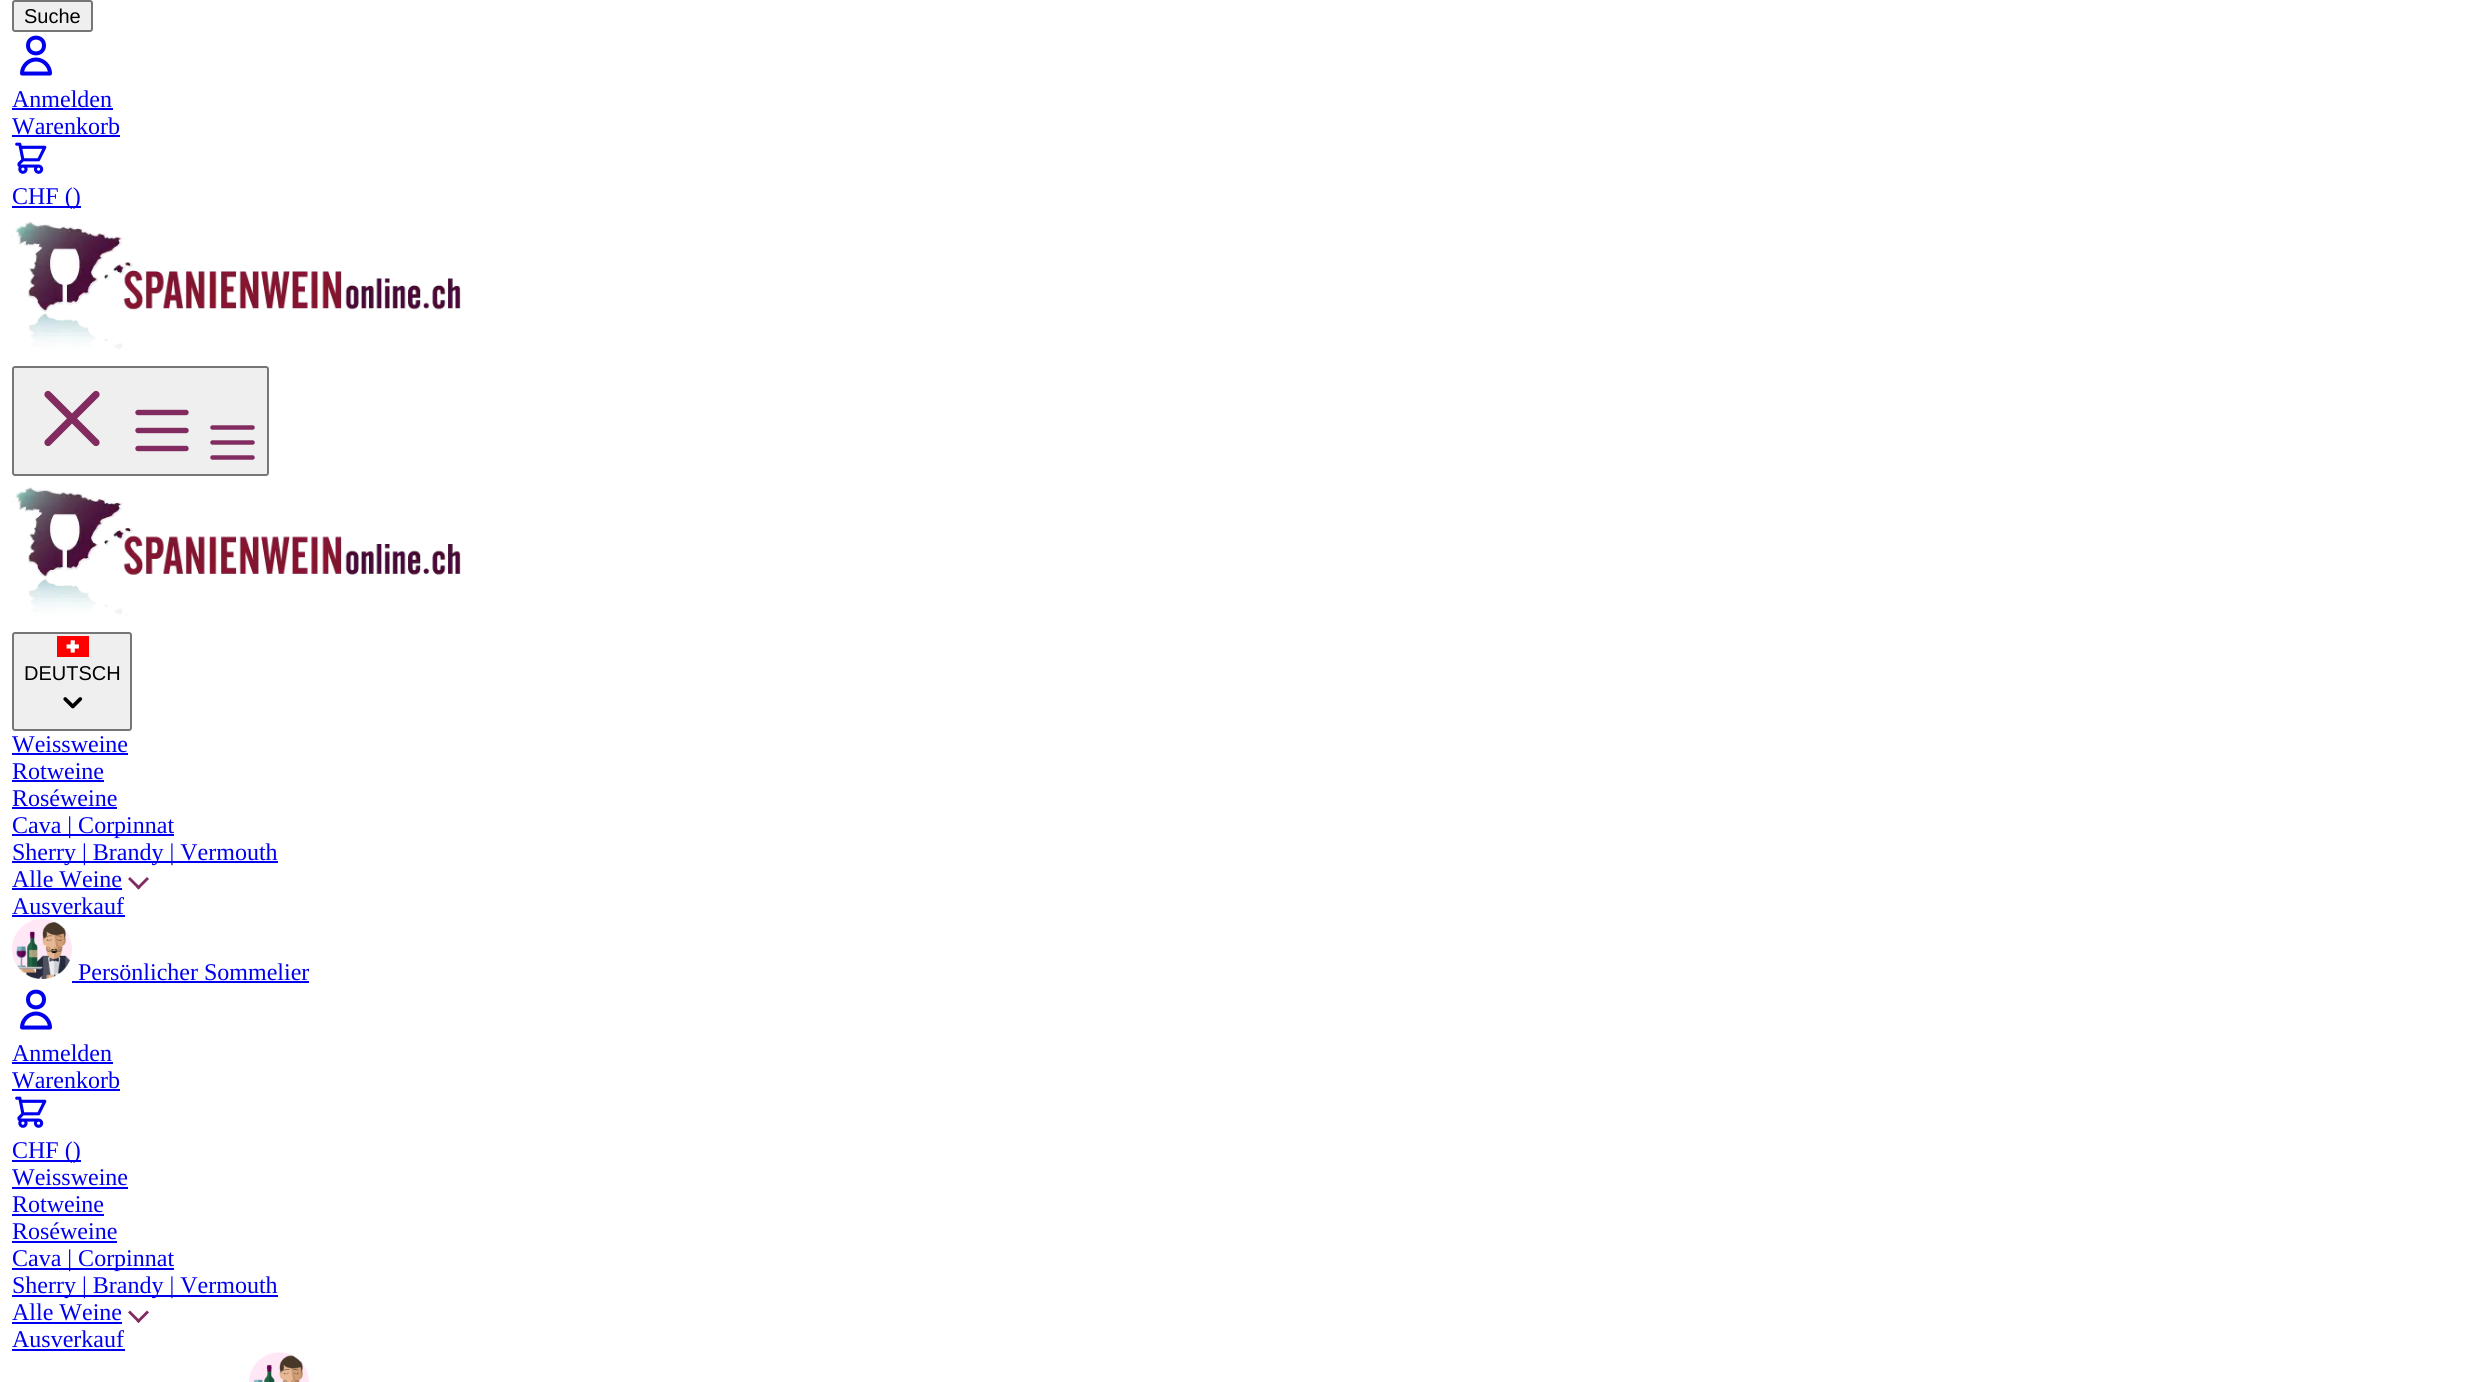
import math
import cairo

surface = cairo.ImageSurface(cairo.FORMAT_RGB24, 2482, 1382)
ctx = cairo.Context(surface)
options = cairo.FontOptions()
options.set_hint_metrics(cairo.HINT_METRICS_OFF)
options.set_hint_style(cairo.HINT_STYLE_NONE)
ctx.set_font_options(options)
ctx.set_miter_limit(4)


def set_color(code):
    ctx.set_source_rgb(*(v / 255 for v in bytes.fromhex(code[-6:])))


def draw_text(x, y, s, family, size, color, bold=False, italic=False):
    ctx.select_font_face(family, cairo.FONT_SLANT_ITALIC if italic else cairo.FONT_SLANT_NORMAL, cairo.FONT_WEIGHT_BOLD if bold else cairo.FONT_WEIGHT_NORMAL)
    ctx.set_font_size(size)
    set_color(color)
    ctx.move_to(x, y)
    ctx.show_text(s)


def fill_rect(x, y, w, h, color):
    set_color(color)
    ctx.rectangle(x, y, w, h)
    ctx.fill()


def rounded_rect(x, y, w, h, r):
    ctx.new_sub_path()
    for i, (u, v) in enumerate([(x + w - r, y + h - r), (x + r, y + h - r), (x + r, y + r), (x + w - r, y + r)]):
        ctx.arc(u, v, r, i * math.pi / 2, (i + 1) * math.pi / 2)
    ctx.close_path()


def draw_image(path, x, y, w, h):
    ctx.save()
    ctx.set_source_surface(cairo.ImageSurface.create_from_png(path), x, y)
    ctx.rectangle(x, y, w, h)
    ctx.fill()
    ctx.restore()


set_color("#ffffff")
ctx.paint()
set_color("#efefef")
rounded_rect(13, 1, 79, 30, 2)
ctx.fill_preserve()
set_color("#767676")
ctx.stroke()
draw_text(24, 23, "Suche", "Liberation Sans", 20, "#000000")
ctx.new_path()
ctx.move_to(44, 45.5)
ctx.curve_to(44, 56, 28, 56, 28, 45.5)
ctx.curve_to(28, 35, 44, 35, 44, 45.5)
ctx.close_path()
ctx.move_to(36, 59.5)
ctx.curve_to(28.5, 59.5, 22, 66, 22, 73.5)
ctx.line_to(50, 73.5)
ctx.curve_to(50, 66, 43.5, 59.5, 36, 59.5)
ctx.close_path()
set_color("#0000ee")
ctx.set_line_width(4)
ctx.set_line_cap(cairo.LINE_CAP_ROUND)
ctx.set_line_join(cairo.LINE_JOIN_ROUND)
ctx.stroke()
draw_text(12, 107, "Anmelden", "Liberation Serif", 24, "#0000ee")
fill_rect(12, 108, 101, 2, "#0000ee")
draw_text(12, 134, "Warenkorb", "Liberation Serif", 24, "#0000ee")
fill_rect(12, 135, 108, 2, "#0000ee")
draw_image("assets/img1.png", 15, 142, 32, 32)
fill_rect(12, 206, 69, 2, "#0000ee")
draw_text(12, 204, "CHF ()", "Liberation Serif", 24, "#0000ee")
draw_image("assets/img2.png", 12, 221, 449, 130)
set_color("#efefef")
rounded_rect(13, 367, 255, 108, 2)
ctx.fill_preserve()
set_color("#767676")
ctx.set_line_width(2)
ctx.set_line_cap(cairo.LINE_CAP_BUTT)
ctx.set_line_join(cairo.LINE_JOIN_MITER)
ctx.stroke()
ctx.new_path()
ctx.move_to(96, 394.5)
ctx.line_to(48, 442.5)
ctx.move_to(48, 394.5)
ctx.line_to(96, 442.5)
set_color("#812b60")
ctx.set_line_width(7.2)
ctx.set_line_cap(cairo.LINE_CAP_ROUND)
ctx.set_line_join(cairo.LINE_JOIN_ROUND)
ctx.stroke()
ctx.new_path()
ctx.move_to(138, 412.5)
ctx.line_to(186, 412.5)
ctx.move_to(138, 430.5)
ctx.line_to(186, 430.5)
ctx.move_to(138, 448.5)
ctx.line_to(186, 448.5)
ctx.set_line_width(5.4)
ctx.stroke()
ctx.new_path()
ctx.move_to(212.5, 427.5)
ctx.line_to(252.5, 427.5)
ctx.move_to(212.5, 442.5)
ctx.line_to(252.5, 442.5)
ctx.move_to(212.5, 457.5)
ctx.line_to(252.5, 457.5)
ctx.set_line_width(4.5)
ctx.stroke()
draw_image("assets/img3.png", 12, 487, 449, 129)
set_color("#efefef")
rounded_rect(13, 633, 118, 97, 2)
ctx.fill_preserve()
set_color("#767676")
ctx.set_line_width(2)
ctx.set_line_cap(cairo.LINE_CAP_BUTT)
ctx.set_line_join(cairo.LINE_JOIN_MITER)
ctx.stroke()
draw_image("assets/img4.png", 57, 636, 32, 21)
draw_text(24, 680, "DEUTSCH", "Liberation Sans", 20, "#000000")
draw_image("assets/img5.png", 63, 697, 20, 12)
draw_text(12, 752, "Weissweine", "Liberation Serif", 24, "#0000ee")
fill_rect(12, 753, 116, 2, "#0000ee")
draw_text(12, 779, "Rotweine", "Liberation Serif", 24, "#0000ee")
fill_rect(12, 780, 92, 2, "#0000ee")
draw_text(12, 806, "Roséweine", "Liberation Serif", 24, "#0000ee")
fill_rect(12, 807, 105, 2, "#0000ee")
fill_rect(12, 834, 162, 2, "#0000ee")
draw_text(12, 833, "Cava | Corpinnat", "Liberation Serif", 24, "#0000ee")
fill_rect(12, 861, 266, 2, "#0000ee")
draw_text(12, 860, "Sherry | Brandy | Vermouth", "Liberation Serif", 24, "#0000ee")
draw_text(12, 887, "Alle Weine", "Liberation Serif", 24, "#0000ee")
fill_rect(12, 888, 110, 2, "#0000ee")
set_color("#812b60")
ctx.new_path()
ctx.move_to(147, 877)
ctx.line_to(149, 879)
ctx.line_to(138.5, 889.5)
ctx.line_to(136.5, 887.5)
ctx.close_path()
ctx.fill()
ctx.new_path()
ctx.move_to(130, 877)
ctx.line_to(140.5, 887.5)
ctx.line_to(138.5, 889.5)
ctx.line_to(128, 879)
ctx.close_path()
ctx.fill()
draw_text(12, 914, "Ausverkauf", "Liberation Serif", 24, "#0000ee")
fill_rect(12, 915, 113, 2, "#0000ee")
draw_image("assets/img6.png", 12, 919, 60, 60)
draw_text(78, 980, "Persönlicher Sommelier", "Liberation Serif", 24, "#0000ee")
fill_rect(72, 981, 237, 2, "#0000ee")
ctx.new_path()
ctx.move_to(44, 999.5)
ctx.curve_to(44, 1010, 28, 1010, 28, 999.5)
ctx.curve_to(28, 989, 44, 989, 44, 999.5)
ctx.close_path()
ctx.move_to(36, 1013.5)
ctx.curve_to(28.5, 1013.5, 22, 1020, 22, 1027.5)
ctx.line_to(50, 1027.5)
ctx.curve_to(50, 1020, 43.5, 1013.5, 36, 1013.5)
ctx.close_path()
ctx.set_line_width(4)
ctx.set_line_cap(cairo.LINE_CAP_ROUND)
ctx.set_line_join(cairo.LINE_JOIN_ROUND)
ctx.stroke()
draw_text(12, 1061, "Anmelden", "Liberation Serif", 24, "#0000ee")
fill_rect(12, 1062, 101, 2, "#0000ee")
draw_text(12, 1088, "Warenkorb", "Liberation Serif", 24, "#0000ee")
fill_rect(12, 1089, 108, 2, "#0000ee")
draw_image("assets/img1.png", 15, 1096, 32, 32)
fill_rect(12, 1160, 69, 2, "#0000ee")
draw_text(12, 1158, "CHF ()", "Liberation Serif", 24, "#0000ee")
draw_text(12, 1185, "Weissweine", "Liberation Serif", 24, "#0000ee")
fill_rect(12, 1187, 116, 2, "#0000ee")
draw_text(12, 1212, "Rotweine", "Liberation Serif", 24, "#0000ee")
fill_rect(12, 1214, 92, 2, "#0000ee")
draw_text(12, 1239, "Roséweine", "Liberation Serif", 24, "#0000ee")
fill_rect(12, 1241, 105, 2, "#0000ee")
fill_rect(12, 1268, 162, 2, "#0000ee")
draw_text(12, 1266, "Cava | Corpinnat", "Liberation Serif", 24, "#0000ee")
fill_rect(12, 1295, 266, 2, "#0000ee")
draw_text(12, 1293, "Sherry | Brandy | Vermouth", "Liberation Serif", 24, "#0000ee")
draw_text(12, 1320, "Alle Weine", "Liberation Serif", 24, "#0000ee")
fill_rect(12, 1322, 110, 2, "#0000ee")
set_color("#812b60")
ctx.new_path()
ctx.move_to(147, 1310.5)
ctx.line_to(149, 1312.5)
ctx.line_to(138.5, 1323)
ctx.line_to(136.5, 1321)
ctx.close_path()
ctx.fill()
ctx.new_path()
ctx.move_to(130, 1310.5)
ctx.line_to(140.5, 1321)
ctx.line_to(138.5, 1323)
ctx.line_to(128, 1312.5)
ctx.close_path()
ctx.fill()
draw_text(12, 1347, "Ausverkauf", "Liberation Serif", 24, "#0000ee")
fill_rect(12, 1349, 113, 2, "#0000ee")
draw_image("assets/img7.png", 249, 1352, 60, 30)
surface.write_to_png("output.png")
